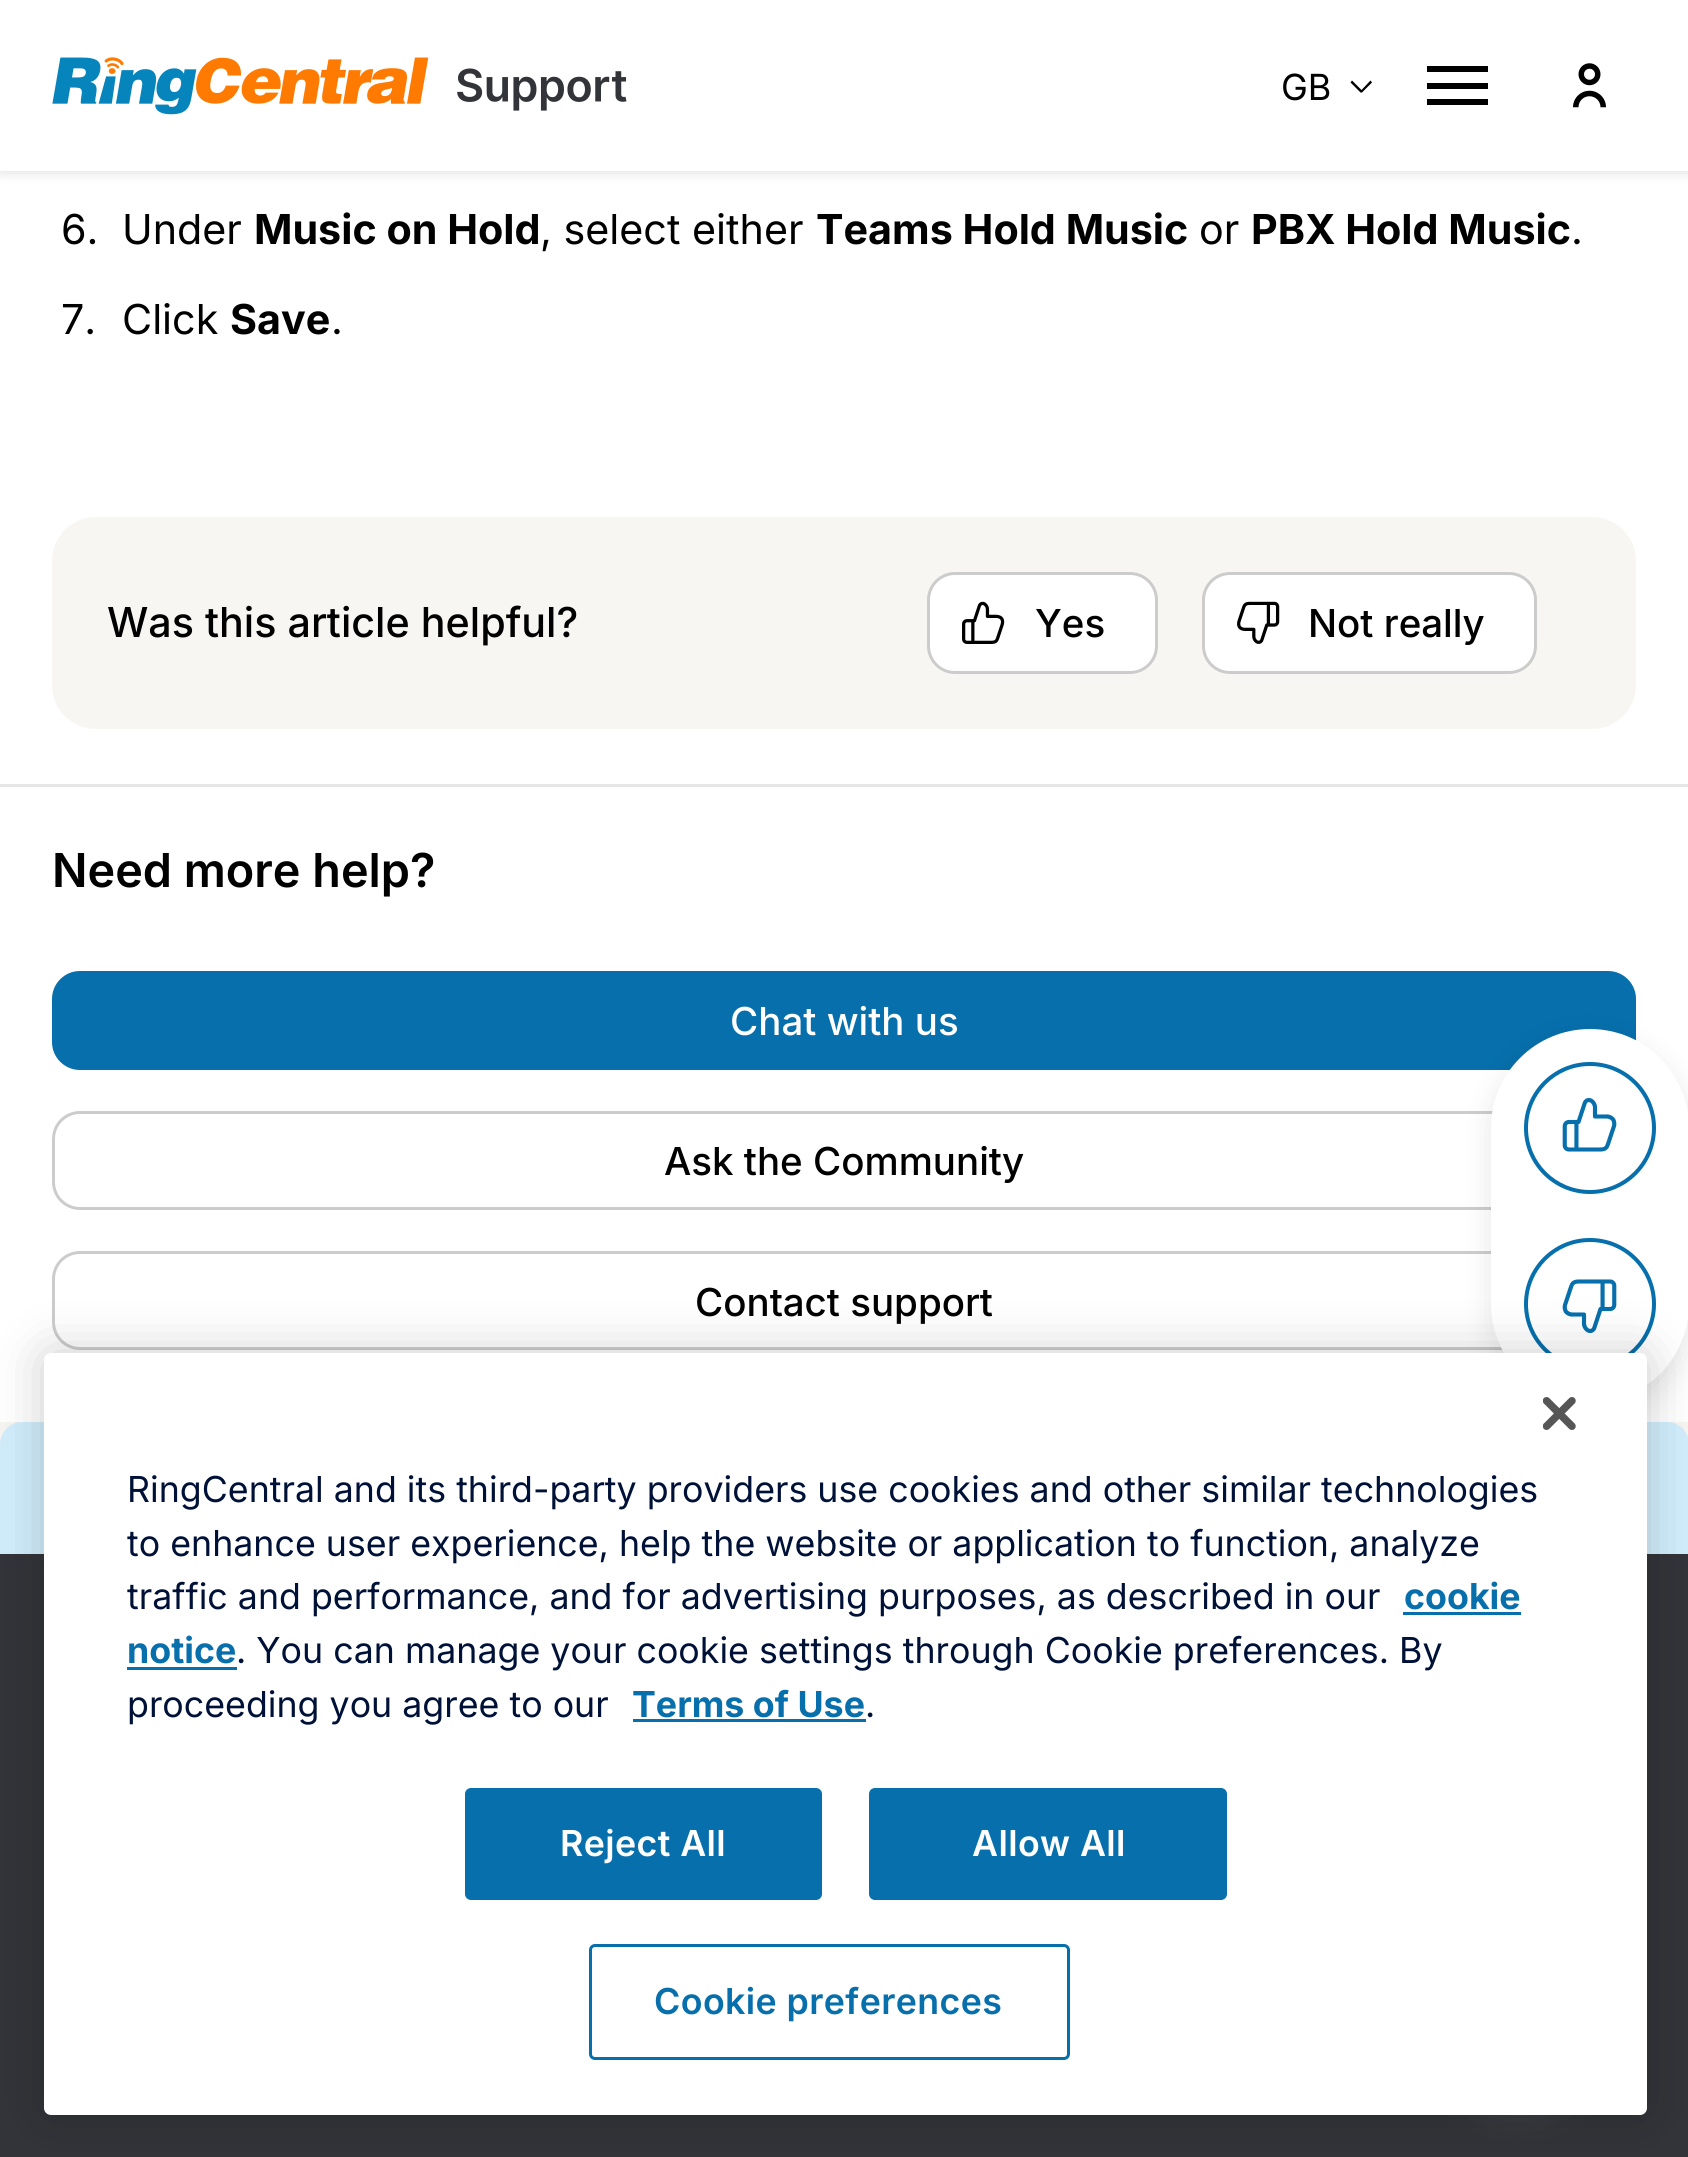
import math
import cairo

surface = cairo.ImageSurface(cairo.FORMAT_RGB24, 1688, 2157)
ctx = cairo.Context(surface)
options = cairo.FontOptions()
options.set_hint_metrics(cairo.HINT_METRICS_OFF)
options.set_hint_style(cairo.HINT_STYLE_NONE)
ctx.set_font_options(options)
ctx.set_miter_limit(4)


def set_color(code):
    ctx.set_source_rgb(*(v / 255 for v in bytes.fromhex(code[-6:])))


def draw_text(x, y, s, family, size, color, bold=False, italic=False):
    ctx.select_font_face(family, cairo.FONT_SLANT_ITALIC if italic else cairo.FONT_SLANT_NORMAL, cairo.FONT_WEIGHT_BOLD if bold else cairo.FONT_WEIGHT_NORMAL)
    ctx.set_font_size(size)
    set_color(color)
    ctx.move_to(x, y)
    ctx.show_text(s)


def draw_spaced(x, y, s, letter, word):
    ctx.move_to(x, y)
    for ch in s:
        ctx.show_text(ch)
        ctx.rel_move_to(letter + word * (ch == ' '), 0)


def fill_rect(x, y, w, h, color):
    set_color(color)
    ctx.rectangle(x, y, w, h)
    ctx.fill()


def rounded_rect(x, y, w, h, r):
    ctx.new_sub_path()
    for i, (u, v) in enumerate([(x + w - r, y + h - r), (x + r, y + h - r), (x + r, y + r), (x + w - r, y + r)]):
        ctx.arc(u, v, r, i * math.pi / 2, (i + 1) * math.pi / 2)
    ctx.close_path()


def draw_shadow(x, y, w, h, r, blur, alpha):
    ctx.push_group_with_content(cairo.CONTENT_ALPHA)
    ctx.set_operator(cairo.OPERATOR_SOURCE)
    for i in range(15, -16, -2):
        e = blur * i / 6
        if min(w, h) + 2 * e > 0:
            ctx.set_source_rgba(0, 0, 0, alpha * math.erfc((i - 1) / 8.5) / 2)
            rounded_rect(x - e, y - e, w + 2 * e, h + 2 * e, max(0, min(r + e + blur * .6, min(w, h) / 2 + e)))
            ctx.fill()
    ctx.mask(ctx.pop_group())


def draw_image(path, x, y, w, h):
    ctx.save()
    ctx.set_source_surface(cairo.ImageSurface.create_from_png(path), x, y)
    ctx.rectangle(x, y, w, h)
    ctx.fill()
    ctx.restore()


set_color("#f6f5f1")
ctx.paint()
fill_rect(0, 171, 1688, 613, "#ffffff")
set_color("#000000")
draw_shadow(0, 0, 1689, 171, 0, 7, 0.15)
fill_rect(0, 0, 1688, 171, "#ffffff")
draw_image("assets/img1.png", 52, 57, 575, 58)
draw_text(1281, 100, "GB", "Inter", 36, "#000000")
ctx.set_fill_rule(cairo.FILL_RULE_EVEN_ODD)
ctx.new_path()
ctx.move_to(1362, 92.5)
ctx.line_to(1360.5, 92.5)
ctx.line_to(1350.5, 82.5)
ctx.line_to(1352, 80.5)
ctx.line_to(1361.5, 90)
ctx.line_to(1370.5, 80.5)
ctx.line_to(1372, 82.5)
ctx.close_path()
ctx.fill()
fill_rect(1427, 66, 61, 6, "#000000")
fill_rect(1427, 83, 61, 6, "#000000")
fill_rect(1427, 99, 61, 6, "#000000")
draw_image("assets/img2.png", 1573, 63, 33, 45)
draw_text(61, 244, "6.", "Inter", 41.25, "#000000")
draw_text(122, 244, "Under", "Inter", 41.25, "#000000")
draw_text(254, 244, "Music on Hold", "Inter", 41.25, "#000000", bold=True)
draw_text(540, 244, ", select either", "Inter", 41.25, "#000000")
draw_text(816, 244, "Teams Hold Music", "Inter", 41.25, "#000000", bold=True)
draw_text(1199, 244, "or", "Inter", 41.25, "#000000")
draw_text(1251, 244, "PBX Hold Music", "Inter", 41.25, "#000000", bold=True)
draw_text(1571, 244, ".", "Inter", 41.25, "#000000")
draw_text(61, 334, "7.", "Inter", 41.25, "#000000")
draw_text(122, 334, "Click", "Inter", 41.25, "#000000")
draw_text(230, 334, "Save", "Inter", 41.25, "#000000", bold=True)
draw_text(331, 334, ".", "Inter", 41.25, "#000000")
set_color("#f8f6f3")
rounded_rect(52, 517, 1584, 212, 44)
ctx.fill()
draw_text(107, 637, "Was this article helpful?", "Inter Medium", 41.25, "#000000")
set_color("#ffffff")
rounded_rect(927, 572, 231, 102, 28)
ctx.fill()
rounded_rect(928.5, 573.5, 228, 99, 26.5)
ctx.set_source_rgba(0, 0, 0, 0.2)
ctx.set_line_width(3)
ctx.stroke()
draw_image("assets/img3.png", 962, 601, 43, 43)
draw_text(1035, 637, "Yes", "Inter Medium", 38.5, "#000000")
set_color("#ffffff")
rounded_rect(1202, 572, 335, 102, 28)
ctx.fill()
rounded_rect(1203.5, 573.5, 332, 99, 26.5)
ctx.set_source_rgba(0, 0, 0, 0.2)
ctx.stroke()
draw_image("assets/img4.png", 1237, 601, 43, 43)
draw_text(1308, 637, "Not really", "Inter Medium", 38.5, "#000000")
fill_rect(0, 787, 1688, 635, "#ffffff")
set_color("#066fac")
rounded_rect(52, 971, 1584, 99, 28)
ctx.fill()
rounded_rect(53.5, 1112.5, 1581, 96, 26.5)
set_color("#cccccc")
ctx.stroke()
rounded_rect(53.5, 1252.5, 1581, 96, 26.5)
ctx.stroke()
set_color("#d1edfc")
ctx.new_path()
ctx.move_to(22, 1422)
ctx.line_to(1667, 1422)
ctx.curve_to(1679, 1422, 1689, 1432, 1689, 1444)
ctx.line_to(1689, 1554)
ctx.line_to(0, 1554)
ctx.line_to(0, 1444)
ctx.curve_to(0, 1432, 10, 1422, 22, 1422)
ctx.close_path()
ctx.fill()
set_color("#000000")
draw_shadow(1491, 1040, 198, 374, 99, 14, 0.1)
set_color("#ffffff")
rounded_rect(1491, 1029, 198, 374, 99)
ctx.fill()
draw_image("assets/img5.png", 1524, 1062, 132, 132)
draw_image("assets/img6.png", 1524, 1238, 132, 115)
fill_rect(0, 784, 1688, 3, "#e6e6e6")
draw_text(52, 887, "Need more help?", "Inter SemiBold", 46.75, "#000000")
draw_text(730, 1035, "Chat with us", "Inter Medium", 38.5, "#ffffff")
draw_text(664, 1175, "Ask the Community", "Inter Medium", 38.5, "#000000")
draw_text(695, 1316, "Contact support", "Inter Medium", 38.5, "#000000")
fill_rect(0, 1554, 1688, 603, "#323439")
set_color("#000000")
draw_shadow(44, 1353, 1603, 762, 7, 25, 0.2)
set_color("#585858")
draw_shadow(1436, 1955, 165, 165, 82.5, 15, 0.27)
set_color("#ffffff")
rounded_rect(44, 1353, 1603, 762, 7)
ctx.fill()
draw_image("assets/img7.png", 1543, 1397, 33, 33)
draw_text(127, 1502, "RingCentral and its third-party providers use cookies and other similar technologies", "Inter", 35.75, "#001138")
draw_text(127, 1556, "to enhance user experience, help the website or application to function, analyze", "Inter", 35.75, "#001138")
draw_text(127, 1609, "traffic and performance, and for advertising purposes, as described in our", "Inter", 35.75, "#001138")
draw_text(1404, 1609, "cookie", "Inter", 35.75, "#066fac", bold=True)
fill_rect(1403, 1612, 118, 3, "#066fac")
draw_text(127, 1663, "notice", "Inter", 35.75, "#066fac", bold=True)
fill_rect(127, 1667, 110, 3, "#066fac")
draw_text(236, 1663, ". You can manage your cookie settings through Cookie preferences. By", "Inter", 35.75, "#001138")
draw_text(127, 1717, "proceeding you agree to our", "Inter", 35.75, "#001138")
draw_text(632, 1717, "Terms of Use", "Inter", 35.75, "#066fac", bold=True)
fill_rect(633, 1719, 233, 3, "#066fac")
draw_text(865, 1717, ".", "Inter", 35.75, "#001138")
set_color("#066fac")
rounded_rect(466.5, 1789.5, 354, 109, 4.5)
ctx.fill_preserve()
ctx.stroke()
ctx.select_font_face("Inter SemiBold")
set_color("#ffffff")
draw_spaced(560, 1856, "Reject All", 0.4, 0)
set_color("#066fac")
rounded_rect(870.5, 1789.5, 355, 109, 4.5)
ctx.fill_preserve()
ctx.stroke()
set_color("#ffffff")
draw_spaced(972, 1856, "Allow All", 0.4, 0)
rounded_rect(590.5, 1945.5, 478, 113, 4.5)
set_color("#066fac")
ctx.stroke()
draw_spaced(654, 2014, "Cookie preferences", 0.4, 0)
surface.write_to_png("output.png")
